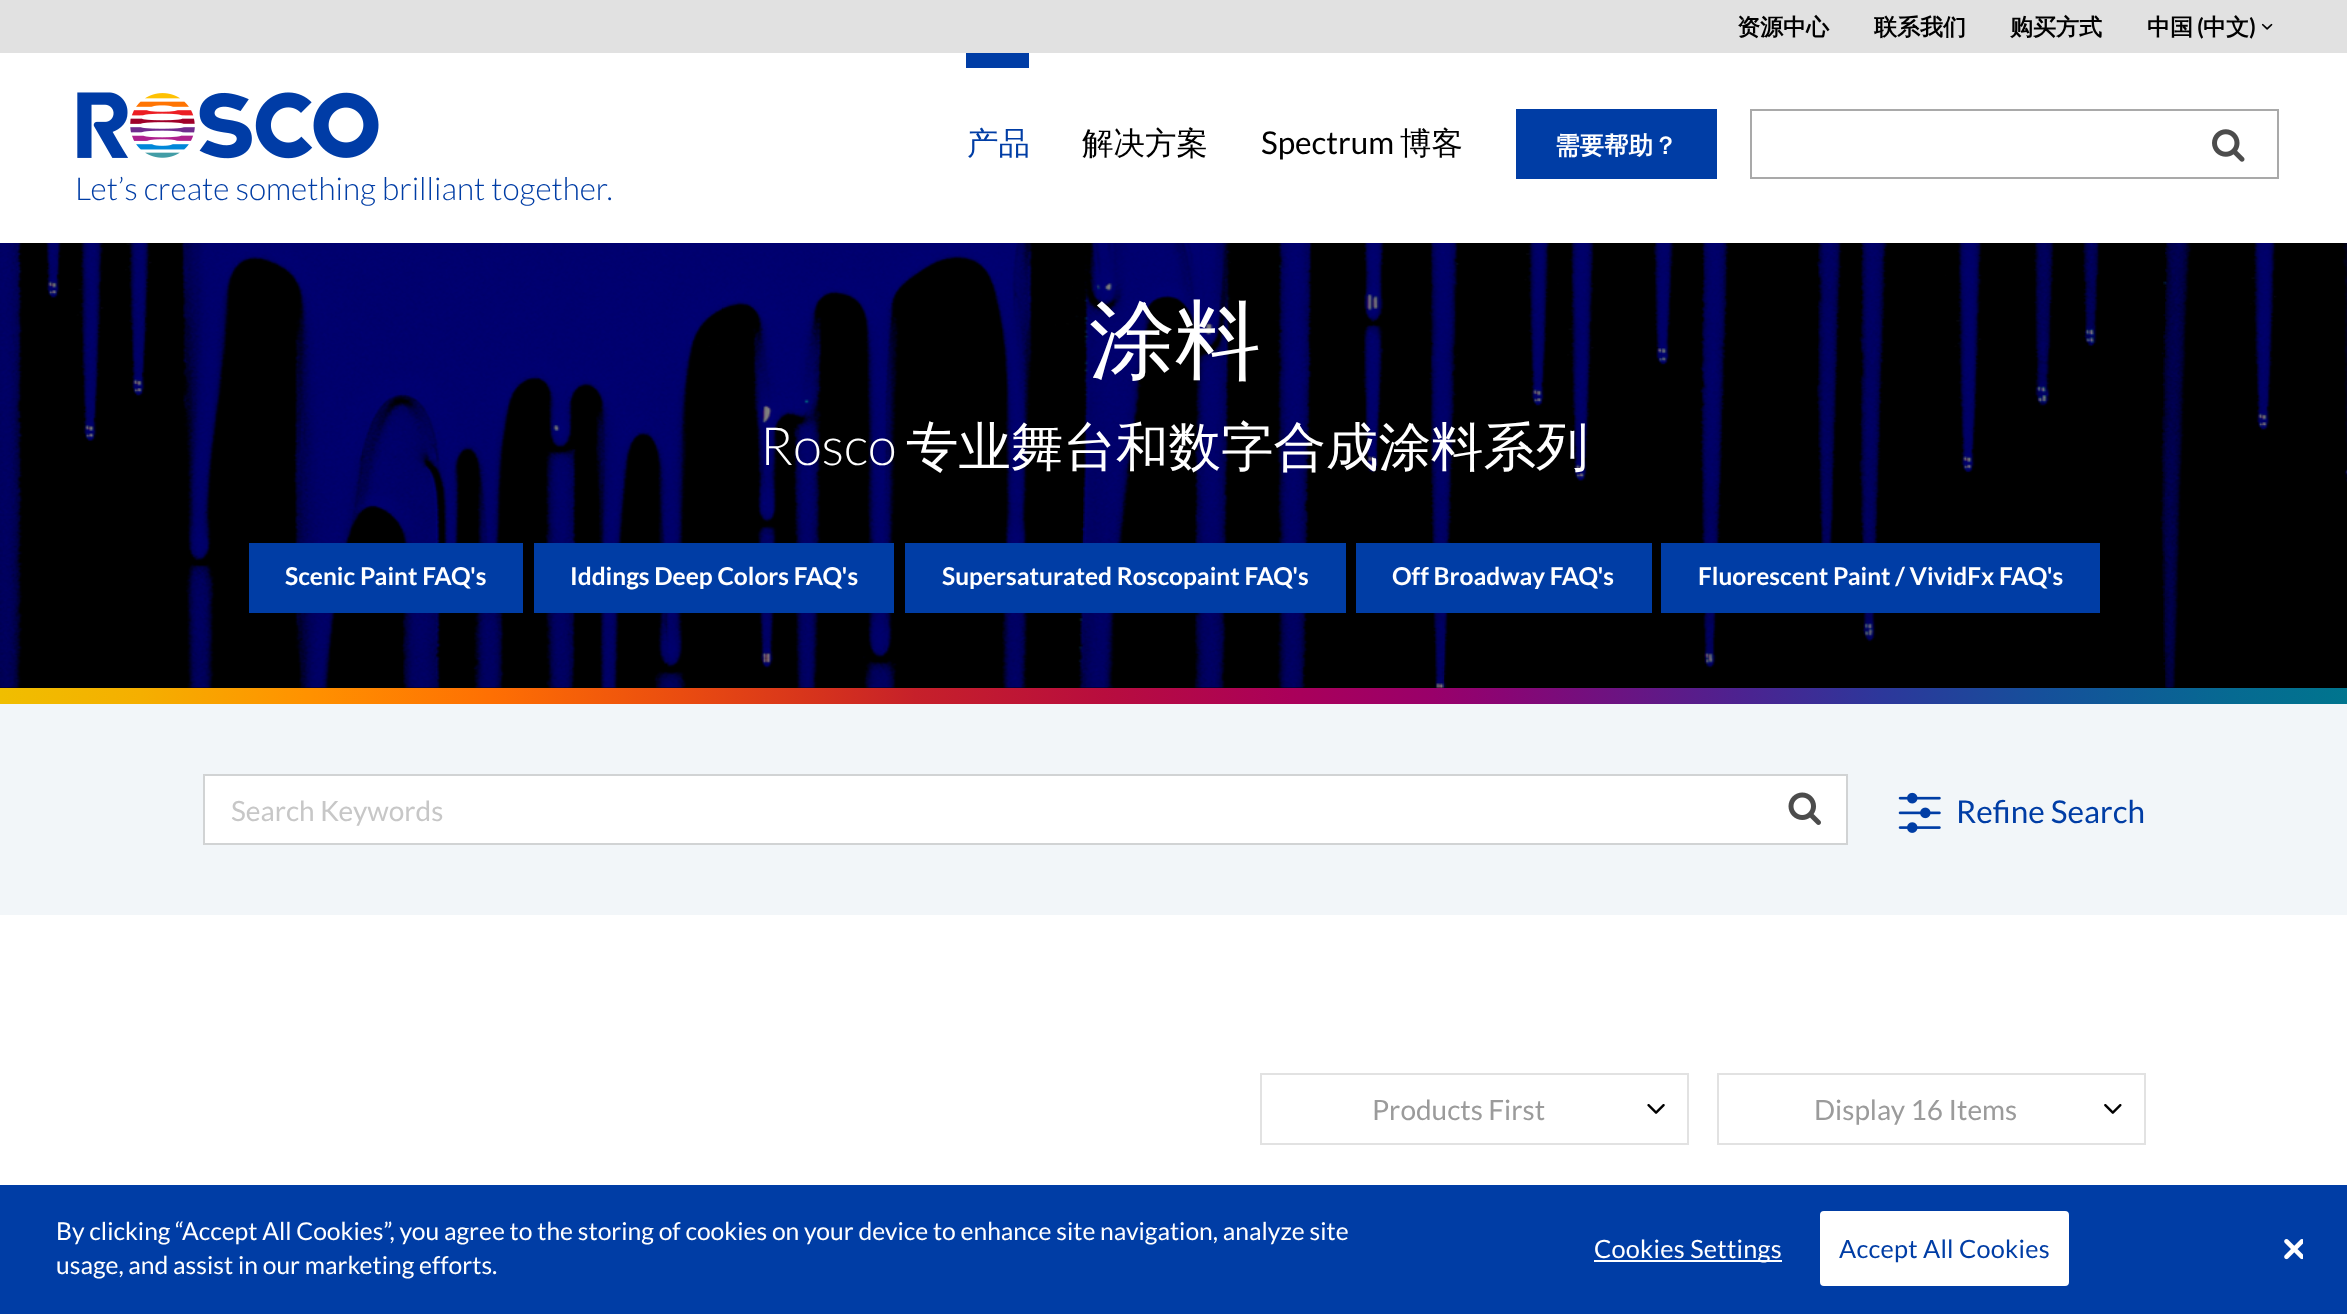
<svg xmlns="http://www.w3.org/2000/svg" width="2347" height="1314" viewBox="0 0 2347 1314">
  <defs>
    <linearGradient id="g1" gradientUnits="userSpaceOnUse" x1="0" y1="696" x2="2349" y2="696"><stop offset="0" stop-color="#f0be00"/><stop offset="0.06" stop-color="#f5af00"/><stop offset="0.13" stop-color="#ff9200"/><stop offset="0.21" stop-color="#fe6f03"/><stop offset="0.29" stop-color="#ea4c10"/><stop offset="0.35" stop-color="#d5321d"/><stop offset="0.39" stop-color="#c6202a"/><stop offset="0.47" stop-color="#b80d3e"/><stop offset="0.55" stop-color="#aa005a"/><stop offset="0.61" stop-color="#99006a"/><stop offset="0.64" stop-color="#890574"/><stop offset="0.74" stop-color="#4d2290"/><stop offset="0.8" stop-color="#2d379b"/><stop offset="0.87" stop-color="#15509b"/><stop offset="0.95" stop-color="#066a92"/><stop offset="1" stop-color="#00758e"/></linearGradient>
  </defs>
  <rect width="100%" height="100%" fill="#fff"/>
  <path d="M0 0h2347v53H0z" fill="#e1e1e1"/>
  <image x="2261" y="23" width="12" height="7" href="img/1.png"/>
  <path d="M966 53h63v15H966z" fill="#003da5"/>
  <path d="M1516 109h201v70H1516z" fill="#003da5"/>
  <path d="M1751 110h527v68H1751z" fill="none" stroke="#a9a9a9" stroke-width="2"/>
  <image x="2212" y="129" width="33" height="33" href="img/2.png"/>
  <image x="77" y="92" width="302" height="67" href="img/3.png"/>
  <path d="M0 687h2347v1H0z" fill="#000"/>
  <image x="0" y="243" width="2347" height="445" href="img/4.png"/>
  <path d="M249 543h274v70H249z" fill="#003da5"/>
  <path d="M534 543h360v70H534z" fill="#003da5"/>
  <path d="M905 543h441v70H905z" fill="#003da5"/>
  <path d="M1356 543h296v70H1356z" fill="#003da5"/>
  <path d="M1661 543h439v70H1661z" fill="#003da5"/>
  <path d="M0 688h2347v16H0z" fill="url(#g1)"/>
  <path d="M0 704h2347v211H0z" fill="#f2f6f9"/>
  <path d="M204 775h1643v69H204z" fill="#fff" stroke="#d1d3d4" stroke-width="2"/>
  <image x="1788" y="792" width="33" height="33" href="img/5.png"/>
  <image x="1898" y="792" width="43" height="41" href="img/6.png"/>
  <path d="M1261 1074h427v70H1261z" fill="none" stroke="#e2e2e2" stroke-width="2"/>
  <image x="1647" y="1104" width="18" height="10" href="img/7.png"/>
  <path d="M1718 1074h427v70H1718z" fill="none" stroke="#e2e2e2" stroke-width="2"/>
  <image x="2104" y="1104" width="18" height="10" href="img/8.png"/>
  <path d="M0 1185h2347v129H0z" fill="#003da5"/>
  <path d="M1594 1260h188v2H1594z" fill="#fff"/>
  <rect x="1821" y="1212" width="247" height="73" rx="3" fill="#fff" stroke="#fff" stroke-width="2"/>
  <image x="2284" y="1239" width="19" height="21" href="img/9.png"/>
  <g font-family="WenQuanYi Zen Hei" font-size="23" font-weight="bold" fill="#000">
    <text x="1737" y="35">资源中心</text>
    <text x="1874" y="35">联系我们</text>
    <text x="2010" y="35">购买方式</text>
    <text x="2147" y="35">中国</text>
  </g>
  <text x="2197" y="35" font-family="Lato" font-size="23" font-weight="bold" fill="#000">(</text>
  <text x="2203" y="35" font-family="WenQuanYi Zen Hei" font-size="23" font-weight="bold" fill="#000">中文</text>
  <text x="2249" y="35" font-family="Lato" font-size="23" font-weight="bold" fill="#000">)</text>
  <text x="967" y="154" font-family="WenQuanYi Zen Hei" font-size="31.5" font-weight="500" fill="#003da5">产品</text>
  <text x="1082" y="154" font-family="WenQuanYi Zen Hei" font-size="31.5" font-weight="500" fill="#000">解决方案</text>
  <text x="1261" y="154" font-family="Lato" font-size="31.5" fill="#000">Spectrum</text>
  <text x="1400" y="154" font-family="WenQuanYi Zen Hei" font-size="31.5" font-weight="500" fill="#000">博客</text>
  <text x="1555" y="154" font-family="WenQuanYi Zen Hei" font-size="24.5" font-weight="bold" fill="#fff">需要帮助？</text>
  <text x="75" y="200" font-family="Lato" font-size="31.5" font-weight="300" fill="#003da5">Let’s create something brilliant together.</text>
  <text x="1089" y="370" font-family="WenQuanYi Zen Hei" font-size="86" font-weight="500" fill="#fff">涂料</text>
  <text x="760" y="465" font-family="Lato" font-size="52.5" font-weight="300" fill="#fff">Rosco</text>
  <text x="906" y="465" font-family="WenQuanYi Zen Hei" font-size="52.5" font-weight="500" fill="#fff">专业舞台和数字合成涂料系列</text>
  <g font-family="Lato" font-size="24.5" font-weight="bold" fill="#fff">
    <text x="285" y="585">Scenic Paint FAQ's</text>
    <text x="570" y="585">Iddings Deep Colors FAQ's</text>
    <text x="942" y="585">Supersaturated Roscopaint FAQ's</text>
    <text x="1392" y="585">Off Broadway FAQ's</text>
    <text x="1698" y="585">Fluorescent Paint / VividFx FAQ's</text>
  </g>
  <text x="231" y="821" font-family="Lato" font-size="28" fill="#c7c7c7">Search Keywords</text>
  <text x="1956" y="823" font-family="Lato" font-size="31.5" fill="#003da5">Refine Search</text>
  <g font-family="Lato" font-size="28" fill="#9b9b9b">
    <text x="1372" y="1120">Products First</text>
    <text x="1814" y="1120">Display 16 Items</text>
  </g>
  <g font-family="Lato" font-size="24.65" fill="#fff">
    <text x="56" y="1240">By clicking “Accept All Cookies”, you agree to the storing of cookies on your device to enhance site navigation, analyze site</text>
    <text x="56" y="1274">usage, and assist in our marketing efforts.</text>
  </g>
  <text x="1594" y="1258" font-family="Lato" font-size="25.25" letter-spacing="0.25" fill="#fff">Cookies Settings</text>
  <text x="1839" y="1258" font-family="Lato" font-size="25.25" letter-spacing="0.25" fill="#003da5">Accept All Cookies</text>
</svg>
